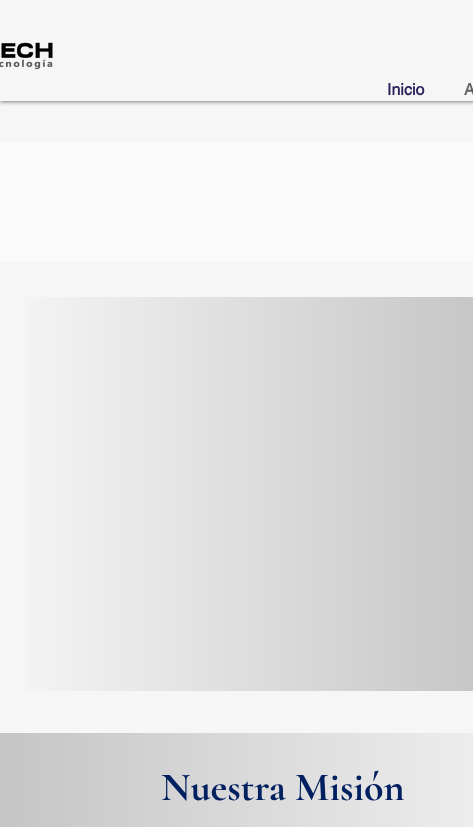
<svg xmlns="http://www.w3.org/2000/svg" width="473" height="827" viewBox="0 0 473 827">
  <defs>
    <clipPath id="clip1"><path d="M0 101h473v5H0z"/></clipPath>
    <linearGradient id="g1" gradientUnits="userSpaceOnUse" x1="0" y1="494" x2="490" y2="494"><stop offset="0" stop-color="#f6f6f6"/><stop offset="1" stop-color="#c5c5c5"/></linearGradient>
    <linearGradient id="g2" gradientUnits="userSpaceOnUse" x1="0" y1="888" x2="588" y2="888"><stop offset="0" stop-color="#c5c5c5"/><stop offset="1" stop-color="#f6f6f6"/></linearGradient>
  </defs>
  <rect width="100%" height="100%" fill="#f6f6f6"/>
  <g clip-path="url(#clip1)">
    <path d="M0 0h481v101H0z" fill="#000000b3" filter="blur(2.5px)"/>
  </g>
  <image x="0" y="42" width="53" height="28" href="img/1.png"/>
  <path d="M0 142h473v120H0z" fill="#fafafa"/>
  <path d="M25 297h448v394H25z" fill="url(#g1)"/>
  <path d="M0 733h473v94H0z" fill="url(#g2)"/>
  <text x="387" y="95" font-family="helvetica" font-size="16" font-weight="bold" fill="#29235c">Inicio</text>
  <text x="464" y="95" font-family="helvetica" font-size="16" font-weight="bold" fill="#626262">A</text>
  <text x="161" y="800" font-family="Cormorant Garamond" font-size="40" font-weight="bold" fill="#002060">Nuestra Misión</text>
</svg>
